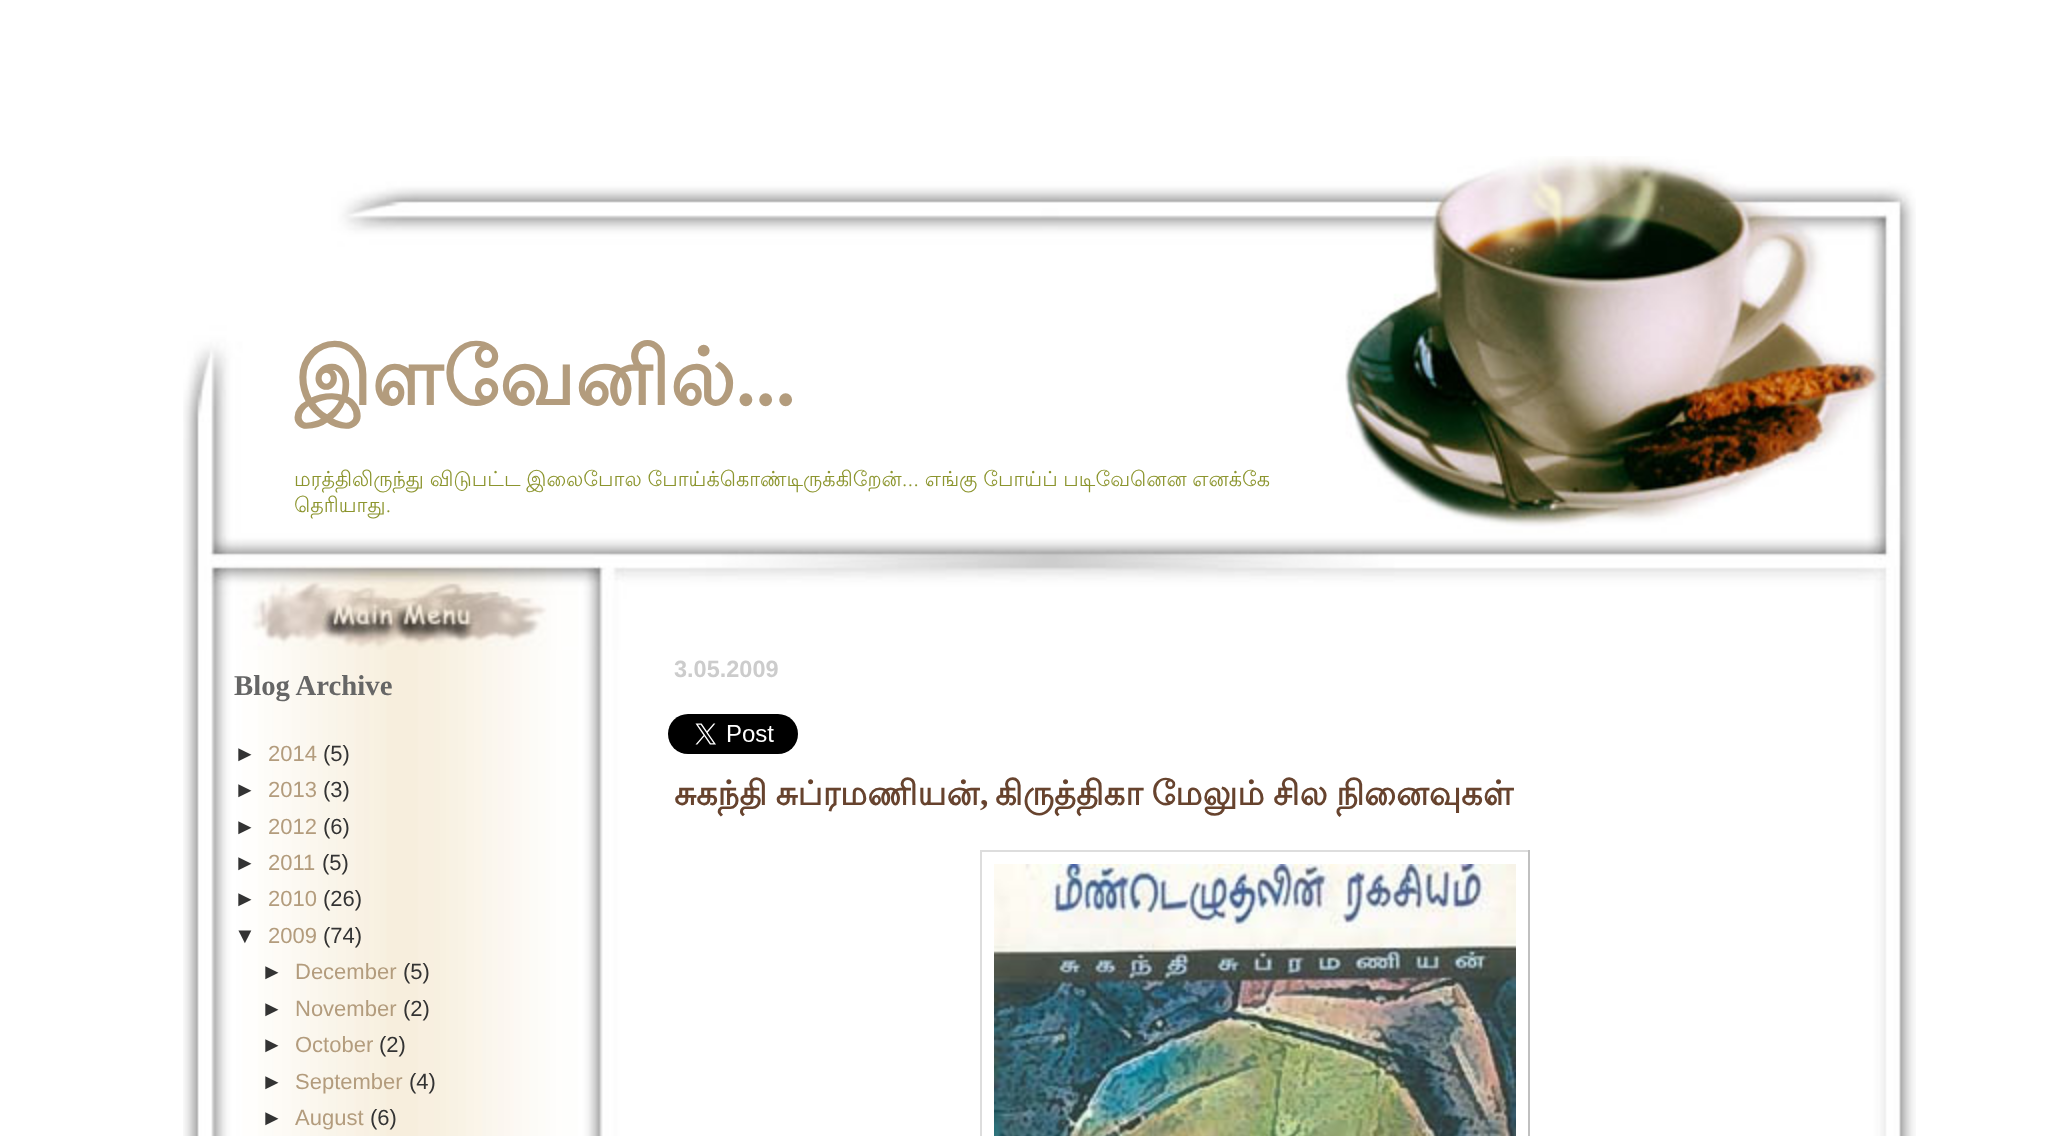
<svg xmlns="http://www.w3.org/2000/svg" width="2067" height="1136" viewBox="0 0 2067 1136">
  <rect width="100%" height="100%" fill="#fff"/>
  <image x="183" y="156" width="1733" height="494" href="img/1.png"/>
  <image x="183" y="650" width="1733" height="486" href="img/2.png"/>
  <image x="668" y="714" width="130" height="40" href="img/3.png"/>
  <path d="M980 850h550v2H980z" fill="#ddd"/>
  <path d="M1528 850h2v286H1528z" fill="#c0c0c0"/>
  <path d="M980 850h2v286H980z" fill="#ddd"/>
  <image x="994" y="864" width="522" height="272" href="img/4.png"/>
  <text x="294" y="405" font-family="Lohit Tamil" font-size="79.25" font-weight="bold" fill="#b39c7d">இளவேனில்</text>
  <text x="736" y="405" font-family="Liberation Serif" font-size="79.25" font-weight="bold" fill="#b39c7d">...</text>
  <g font-family="Lohit Tamil" font-size="20.8" fill="#8c952e">
    <text x="294" y="486" word-spacing="-0.5">மரத்திலிருந்து விடுபட்ட இலைபோல போய்க்கொண்டிருக்கிறேன்... எங்கு போய்ப் படிவேனென எனக்கே</text>
    <text x="294" y="512">தெரியாது.</text>
  </g>
  <text x="234" y="695" font-family="Liberation Serif" font-size="28.75" font-weight="bold" fill="#666">Blog Archive</text>
  <text x="234" y="761" font-family="Liberation Sans" font-size="22" fill="#333">►</text>
  <text x="268" y="761" font-family="Liberation Sans" font-size="22" fill="#b39c7d">2014</text>
  <g font-family="Liberation Sans" font-size="22" fill="#333">
    <text x="323" y="761">(5)</text>
    <text x="234" y="797">►</text>
  </g>
  <text x="268" y="797" font-family="Liberation Sans" font-size="22" fill="#b39c7d">2013</text>
  <g font-family="Liberation Sans" font-size="22" fill="#333">
    <text x="323" y="797">(3)</text>
    <text x="234" y="834">►</text>
  </g>
  <text x="268" y="834" font-family="Liberation Sans" font-size="22" fill="#b39c7d">2012</text>
  <g font-family="Liberation Sans" font-size="22" fill="#333">
    <text x="323" y="834">(6)</text>
    <text x="234" y="870">►</text>
  </g>
  <text x="268" y="870" font-family="Liberation Sans" font-size="22" fill="#b39c7d">2011</text>
  <g font-family="Liberation Sans" font-size="22" fill="#333">
    <text x="322" y="870">(5)</text>
    <text x="234" y="906">►</text>
  </g>
  <text x="268" y="906" font-family="Liberation Sans" font-size="22" fill="#b39c7d">2010</text>
  <g font-family="Liberation Sans" font-size="22" fill="#333">
    <text x="323" y="906">(26)</text>
    <text x="234" y="943">▼</text>
  </g>
  <text x="268" y="943" font-family="Liberation Sans" font-size="22" fill="#b39c7d">2009</text>
  <g font-family="Liberation Sans" font-size="22" fill="#333">
    <text x="323" y="943">(74)</text>
    <text x="261" y="979">►</text>
  </g>
  <text x="295" y="979" font-family="Liberation Sans" font-size="22" fill="#b39c7d">December</text>
  <g font-family="Liberation Sans" font-size="22" fill="#333">
    <text x="403" y="979">(5)</text>
    <text x="261" y="1016">►</text>
  </g>
  <text x="295" y="1016" font-family="Liberation Sans" font-size="22" fill="#b39c7d">November</text>
  <g font-family="Liberation Sans" font-size="22" fill="#333">
    <text x="403" y="1016">(2)</text>
    <text x="261" y="1052">►</text>
  </g>
  <text x="295" y="1052" font-family="Liberation Sans" font-size="22" fill="#b39c7d">October</text>
  <g font-family="Liberation Sans" font-size="22" fill="#333">
    <text x="379" y="1052">(2)</text>
    <text x="261" y="1089">►</text>
  </g>
  <text x="295" y="1089" font-family="Liberation Sans" font-size="22" fill="#b39c7d">September</text>
  <g font-family="Liberation Sans" font-size="22" fill="#333">
    <text x="409" y="1089">(4)</text>
    <text x="261" y="1125">►</text>
  </g>
  <text x="295" y="1125" font-family="Liberation Sans" font-size="22" fill="#b39c7d">August</text>
  <text x="370" y="1125" font-family="Liberation Sans" font-size="22" fill="#333">(6)</text>
  <text x="674" y="677" font-family="Liberation Sans" font-size="23.5" font-weight="bold" fill="#ccc">3.05.2009</text>
  <text x="674" y="805" word-spacing="-1.5" font-family="Lohit Tamil" font-size="33.75" font-weight="bold" fill="#67432e">சுகந்தி சுப்ரமணியன்</text>
  <text x="980" y="805" font-family="Liberation Serif" font-size="33.75" font-weight="bold" fill="#67432e">,</text>
  <text x="995" y="805" word-spacing="-1.5" font-family="Lohit Tamil" font-size="33.75" font-weight="bold" fill="#67432e">கிருத்திகா மேலும் சில நினைவுகள்</text>
</svg>
